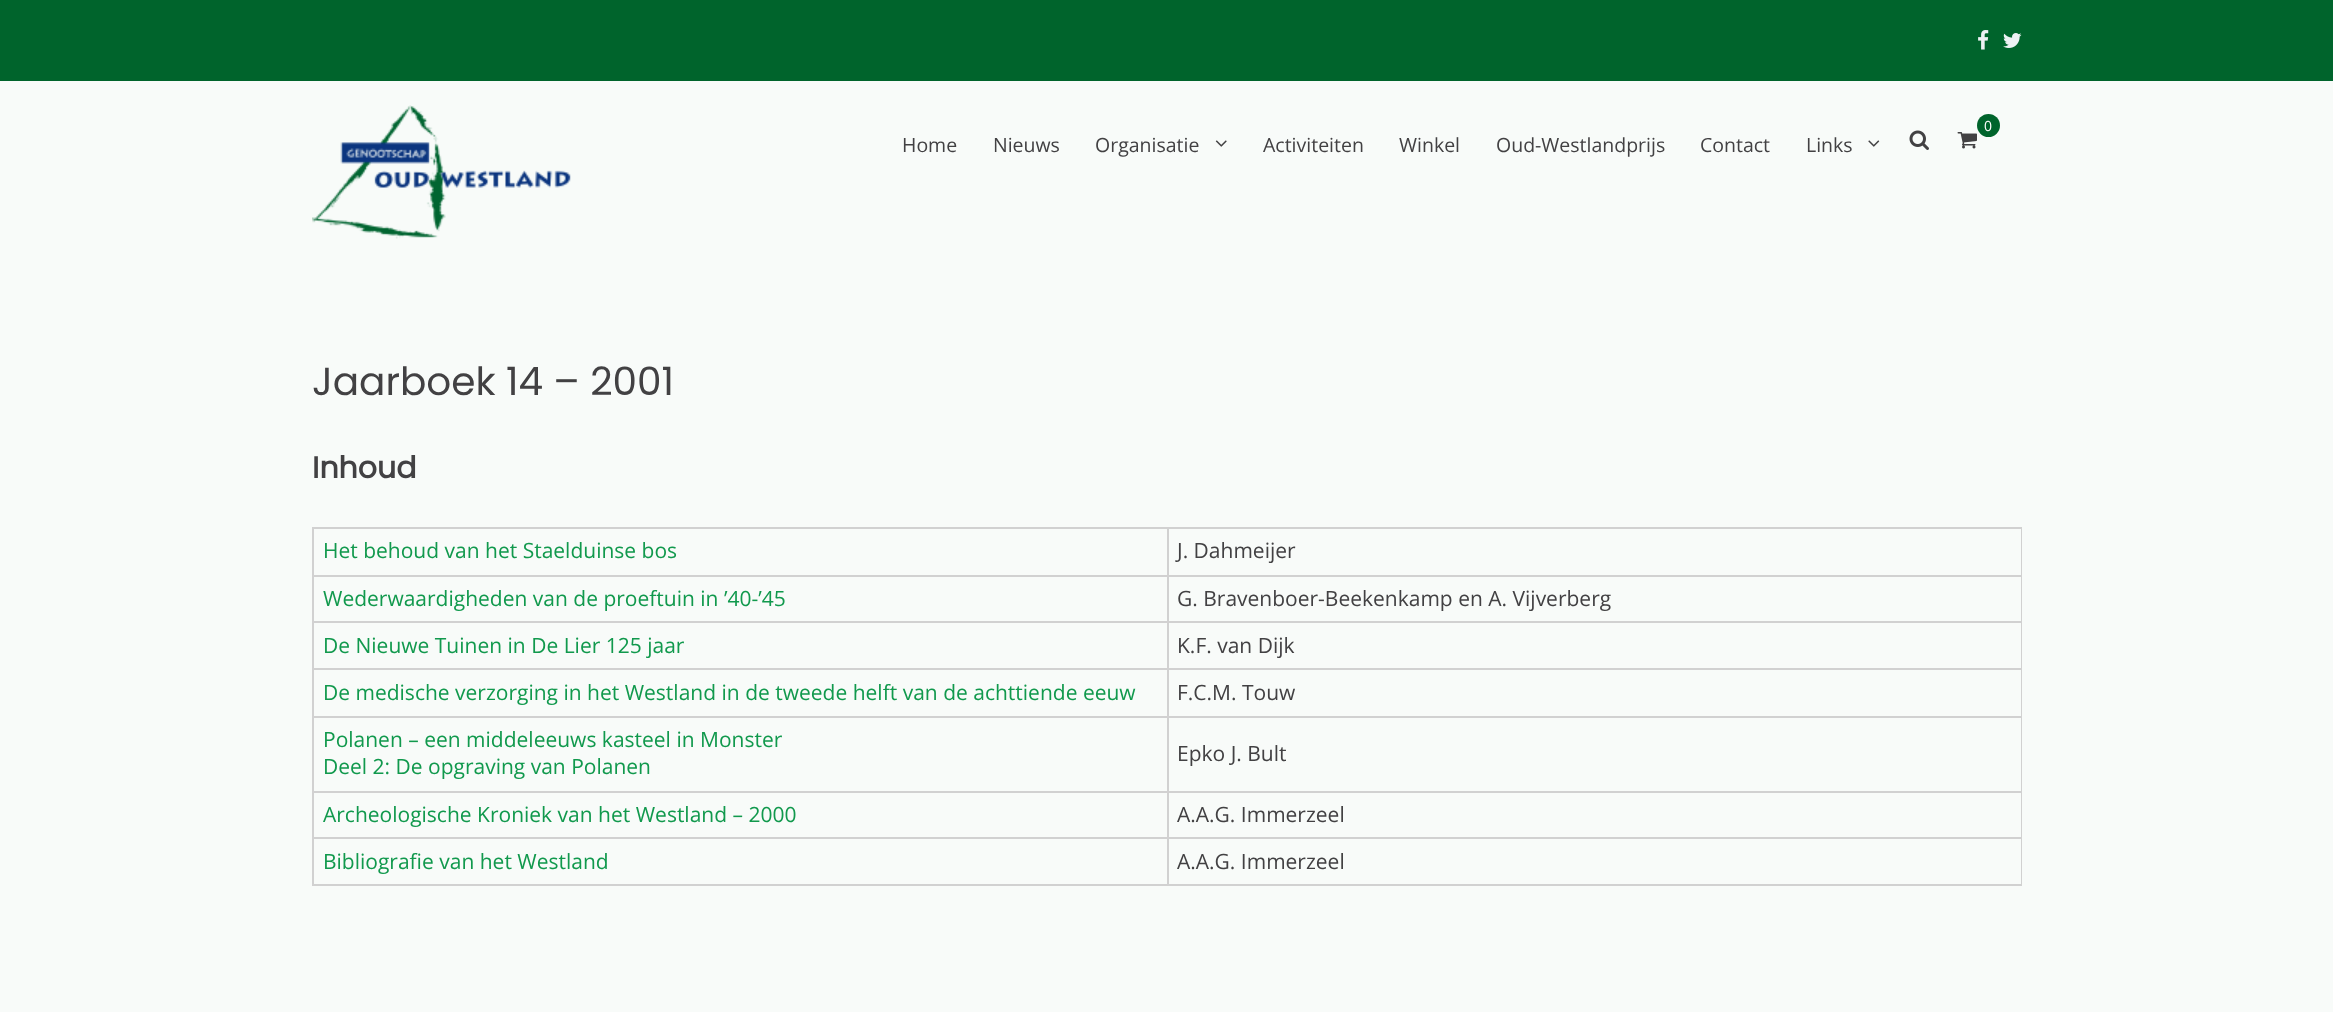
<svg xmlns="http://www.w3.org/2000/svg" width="2333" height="1012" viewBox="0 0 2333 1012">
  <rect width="100%" height="100%" fill="#f8fbf9"/>
  <path d="M0 0h2333v81H0z" fill="#00642c"/>
  <image x="1978" y="30" width="11" height="20" href="img/1.png"/>
  <image x="2003" y="33" width="19" height="15" href="img/2.png"/>
  <image x="312" y="105" width="259" height="134" href="img/3.png"/>
  <circle cx="1988.5" cy="125.5" r="11.5" fill="#00642c"/>
  <image x="1957" y="132" width="20" height="17" href="img/4.png"/>
  <image x="1909" y="130" width="20" height="20" href="img/5.png"/>
  <image x="1215" y="140" width="12" height="7" href="img/6.png"/>
  <image x="1868" y="140" width="12" height="7" href="img/7.png"/>
  <path d="M312 527h1710v2H312z" fill="#d1d1d1"/>
  <path d="M312 527h2v358H312z" fill="#d1d1d1"/>
  <path d="M2021 527h1v358H2021z" fill="#d1d1d1"/>
  <path d="M1167 884h855v2H1167z" fill="#d1d1d1"/>
  <path d="M1167 837h2v48H1167z" fill="#d1d1d1"/>
  <path d="M1167 837h855v2H1167z" fill="#d1d1d1"/>
  <path d="M1167 791h2v48H1167z" fill="#d1d1d1"/>
  <path d="M1167 791h855v2H1167z" fill="#d1d1d1"/>
  <path d="M1167 716h2v76H1167z" fill="#d1d1d1"/>
  <path d="M1167 716h855v2H1167z" fill="#d1d1d1"/>
  <path d="M1167 668h2v49H1167z" fill="#d1d1d1"/>
  <path d="M1167 668h855v2H1167z" fill="#d1d1d1"/>
  <path d="M1167 621h2v48H1167z" fill="#d1d1d1"/>
  <path d="M1167 621h855v2H1167z" fill="#d1d1d1"/>
  <path d="M1167 575h2v48H1167z" fill="#d1d1d1"/>
  <path d="M1167 575h855v2H1167z" fill="#d1d1d1"/>
  <path d="M1167 527h2v49H1167z" fill="#d1d1d1"/>
  <path d="M312 575h857v2H312z" fill="#d1d1d1"/>
  <path d="M312 621h857v2H312z" fill="#d1d1d1"/>
  <path d="M312 668h857v2H312z" fill="#d1d1d1"/>
  <path d="M312 716h857v2H312z" fill="#d1d1d1"/>
  <path d="M312 791h857v2H312z" fill="#d1d1d1"/>
  <path d="M312 837h857v2H312z" fill="#d1d1d1"/>
  <path d="M312 884h857v2H312z" fill="#d1d1d1"/>
  <text x="1984" y="131" font-family="Open Sans" font-size="14" fill="#fff">0</text>
  <g font-family="Open Sans" font-size="19.5" fill="#424143">
    <text x="902" y="152">Home</text>
    <text x="993" y="152">Nieuws</text>
    <text x="1095" y="152">Organisatie</text>
    <text x="1263" y="152">Activiteiten</text>
    <text x="1399" y="152">Winkel</text>
    <text x="1496" y="152">Oud-Westlandprijs</text>
    <text x="1700" y="152">Contact</text>
    <text x="1806" y="152">Links</text>
  </g>
  <text x="312" y="395" font-family="Poppins" font-size="39" fill="#424143">Jaarboek 14 – 2001</text>
  <text x="312" y="478" font-family="Poppins" font-size="30" font-weight="bold" fill="#424143">Inhoud</text>
  <text x="323" y="558" font-family="Open Sans" font-size="21" fill="#11994d">Het behoud van het Staelduinse bos</text>
  <text x="1177" y="558" font-family="Open Sans" font-size="21" fill="#424143">J. Dahmeijer</text>
  <text x="323" y="606" font-family="Open Sans" font-size="21" fill="#11994d">Wederwaardigheden van de proeftuin in ’40-’45</text>
  <text x="1177" y="606" font-family="Open Sans" font-size="21" fill="#424143">G. Bravenboer-Beekenkamp en A. Vijverberg</text>
  <text x="323" y="653" font-family="Open Sans" font-size="21" fill="#11994d">De Nieuwe Tuinen in De Lier 125 jaar</text>
  <text x="1177" y="653" font-family="Open Sans" font-size="21" fill="#424143">K.F. van Dijk</text>
  <text x="323" y="700" font-family="Open Sans" font-size="21" fill="#11994d">De medische verzorging in het Westland in de tweede helft van de achttiende eeuw</text>
  <text x="1177" y="700" font-family="Open Sans" font-size="21" fill="#424143">F.C.M. Touw</text>
  <g font-family="Open Sans" font-size="21" fill="#11994d">
    <text x="323" y="747">Polanen – een middeleeuws kasteel in Monster</text>
    <text x="323" y="774">Deel 2: De opgraving van Polanen</text>
  </g>
  <text x="1177" y="761" font-family="Open Sans" font-size="21" fill="#424143">Epko J. Bult</text>
  <text x="323" y="822" font-family="Open Sans" font-size="21" fill="#11994d">Archeologische Kroniek van het Westland – 2000</text>
  <text x="1177" y="822" font-family="Open Sans" font-size="21" fill="#424143">A.A.G. Immerzeel</text>
  <text x="323" y="869" font-family="Open Sans" font-size="21" fill="#11994d">Bibliografie van het Westland</text>
  <text x="1177" y="869" font-family="Open Sans" font-size="21" fill="#424143">A.A.G. Immerzeel</text>
</svg>
